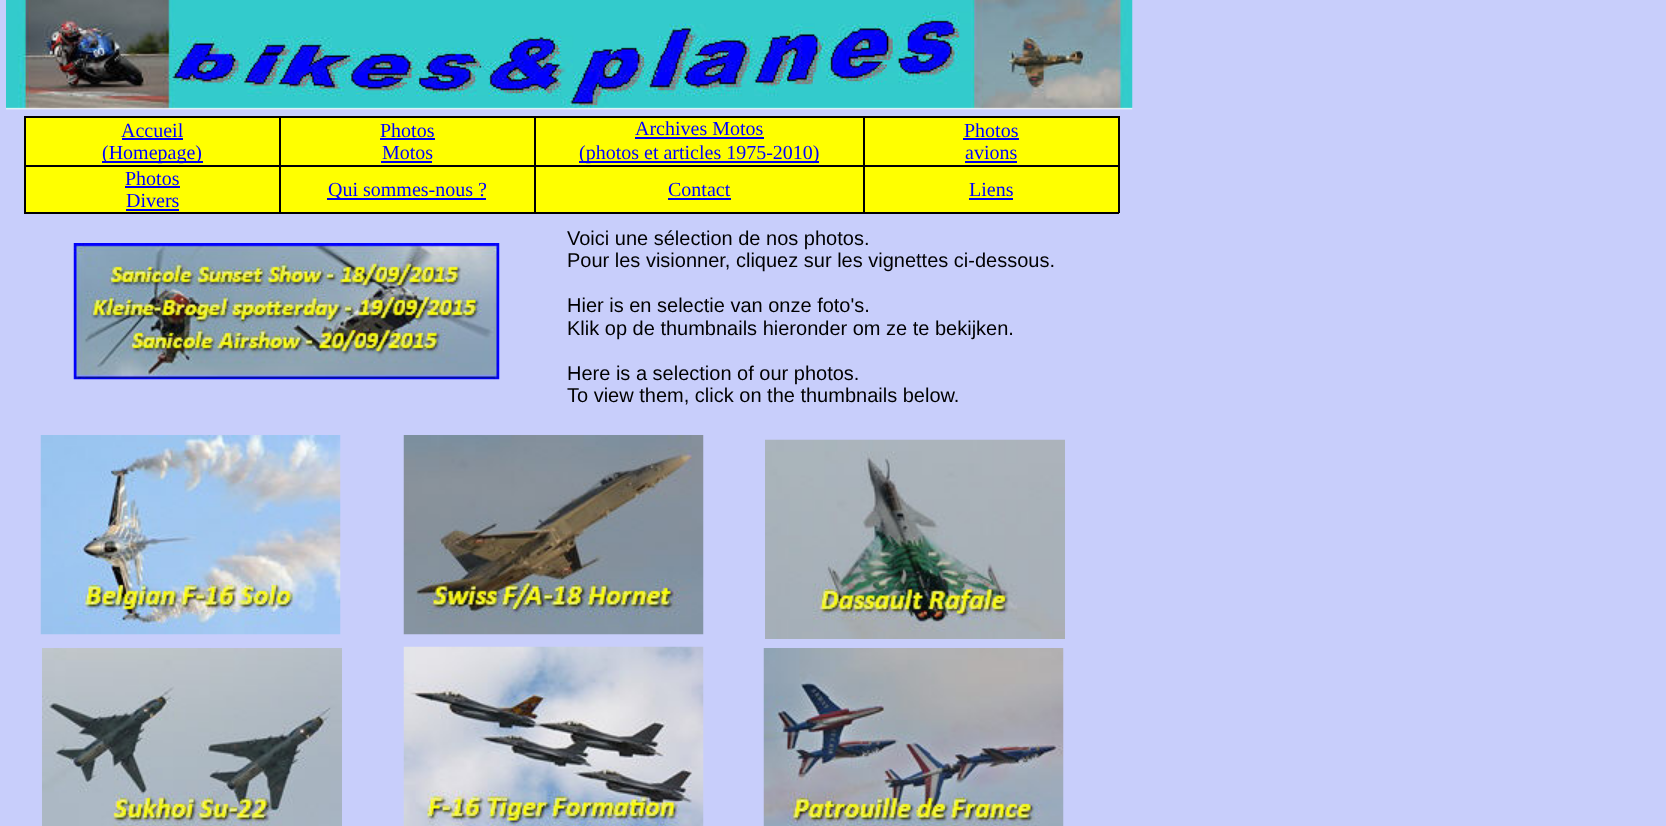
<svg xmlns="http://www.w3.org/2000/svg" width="1666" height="826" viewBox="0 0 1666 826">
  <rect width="100%" height="100%" fill="#c8cefb"/>
  <image x="6" y="0" width="1127" height="110" href="img/1.png"/>
  <path d="M26 118h253v47H26z" fill="#ff0"/>
  <path d="M863 116h256v2H863z" fill="#010101"/>
  <path d="M863 165h256v2H863z" fill="#010101"/>
  <path d="M1118 165h2v48H1118z" fill="#010101"/>
  <path d="M863 212h256v2H863z" fill="#010101"/>
  <path d="M863 165h2v48H863z" fill="#010101"/>
  <path d="M534 165h330v2H534z" fill="#010101"/>
  <path d="M863 116h2v51H863z" fill="#010101"/>
  <path d="M534 116h330v2H534z" fill="#010101"/>
  <path d="M534 212h330v2H534z" fill="#010101"/>
  <path d="M534 165h2v48H534z" fill="#010101"/>
  <path d="M279 165h257v2H279z" fill="#010101"/>
  <path d="M534 116h2v51H534z" fill="#010101"/>
  <path d="M279 116h257v2H279z" fill="#010101"/>
  <path d="M279 212h257v2H279z" fill="#010101"/>
  <path d="M279 165h2v48H279z" fill="#010101"/>
  <path d="M24 165h257v2H24z" fill="#010101"/>
  <path d="M279 116h2v51H279z" fill="#010101"/>
  <path d="M24 116h257v2H24z" fill="#010101"/>
  <path d="M24 212h257v2H24z" fill="#010101"/>
  <path d="M24 165h2v48H24z" fill="#010101"/>
  <path d="M24 116h2v51H24z" fill="#010101"/>
  <path d="M122 138h61v2H122z" fill="#00e"/>
  <path d="M102 161h101v2H102z" fill="#00e"/>
  <path d="M281 118h253v47H281z" fill="#ff0"/>
  <path d="M380 138h55v2H380z" fill="#00e"/>
  <path d="M381 161h51v2H381z" fill="#00e"/>
  <path d="M536 118h327v47H536z" fill="#ff0"/>
  <path d="M635 137h129v2H635z" fill="#00e"/>
  <path d="M579 161h240v2H579z" fill="#00e"/>
  <path d="M865 118h253v47H865z" fill="#ff0"/>
  <path d="M1118 116h2v51H1118z" fill="#010101"/>
  <path d="M963 138h56v2H963z" fill="#00e"/>
  <path d="M965 161h52v2H965z" fill="#00e"/>
  <path d="M26 167h253v45H26z" fill="#ff0"/>
  <path d="M125 186h55v2H125z" fill="#00e"/>
  <path d="M126 209h53v2H126z" fill="#00e"/>
  <path d="M281 167h253v45H281z" fill="#ff0"/>
  <path d="M327 198h159v2H327z" fill="#00e"/>
  <path d="M536 167h327v45H536z" fill="#ff0"/>
  <path d="M668 198h63v2H668z" fill="#00e"/>
  <path d="M865 167h253v45H865z" fill="#ff0"/>
  <path d="M969 198h44v2H969z" fill="#00e"/>
  <image x="73" y="243" width="427" height="137" href="img/2.png"/>
  <image x="40" y="435" width="301" height="200" href="img/3.png"/>
  <image x="403" y="435" width="301" height="200" href="img/4.png"/>
  <image x="765" y="439" width="300" height="200" href="img/5.png"/>
  <image x="42" y="648" width="300" height="178" href="img/6.png"/>
  <image x="403" y="646" width="301" height="180" href="img/7.png"/>
  <image x="763" y="648" width="301" height="178" href="img/8.png"/>
  <g font-family="Liberation Serif" font-size="20" fill="#00f">
    <text x="121" y="137">Accueil</text>
    <text x="102" y="159">(Homepage)</text>
    <text x="380" y="137">Photos</text>
    <text x="382" y="159">Motos</text>
    <text x="635" y="135">Archives Motos</text>
    <text x="579" y="159">(photos et articles 1975-2010)</text>
    <text x="964" y="137">Photos</text>
    <text x="965" y="159">avions</text>
    <text x="125" y="185">Photos</text>
    <text x="126" y="207">Divers</text>
    <text x="328" y="196">Qui sommes-nous ?</text>
    <text x="668" y="196">Contact</text>
    <text x="969" y="196">Liens</text>
  </g>
  <g font-family="Liberation Sans" font-size="20" fill="#000">
    <text x="567" y="245">Voici une sélection de nos photos.</text>
    <text x="567" y="267">Pour les visionner, cliquez sur les vignettes ci-dessous.</text>
    <text x="567" y="312">Hier is en selectie van onze foto's.</text>
    <text x="567" y="335">Klik op de thumbnails hieronder om ze te bekijken.</text>
    <text x="567" y="380">Here is a selection of our photos.</text>
    <text x="567" y="402">To view them, click on the thumbnails below.</text>
  </g>
</svg>
